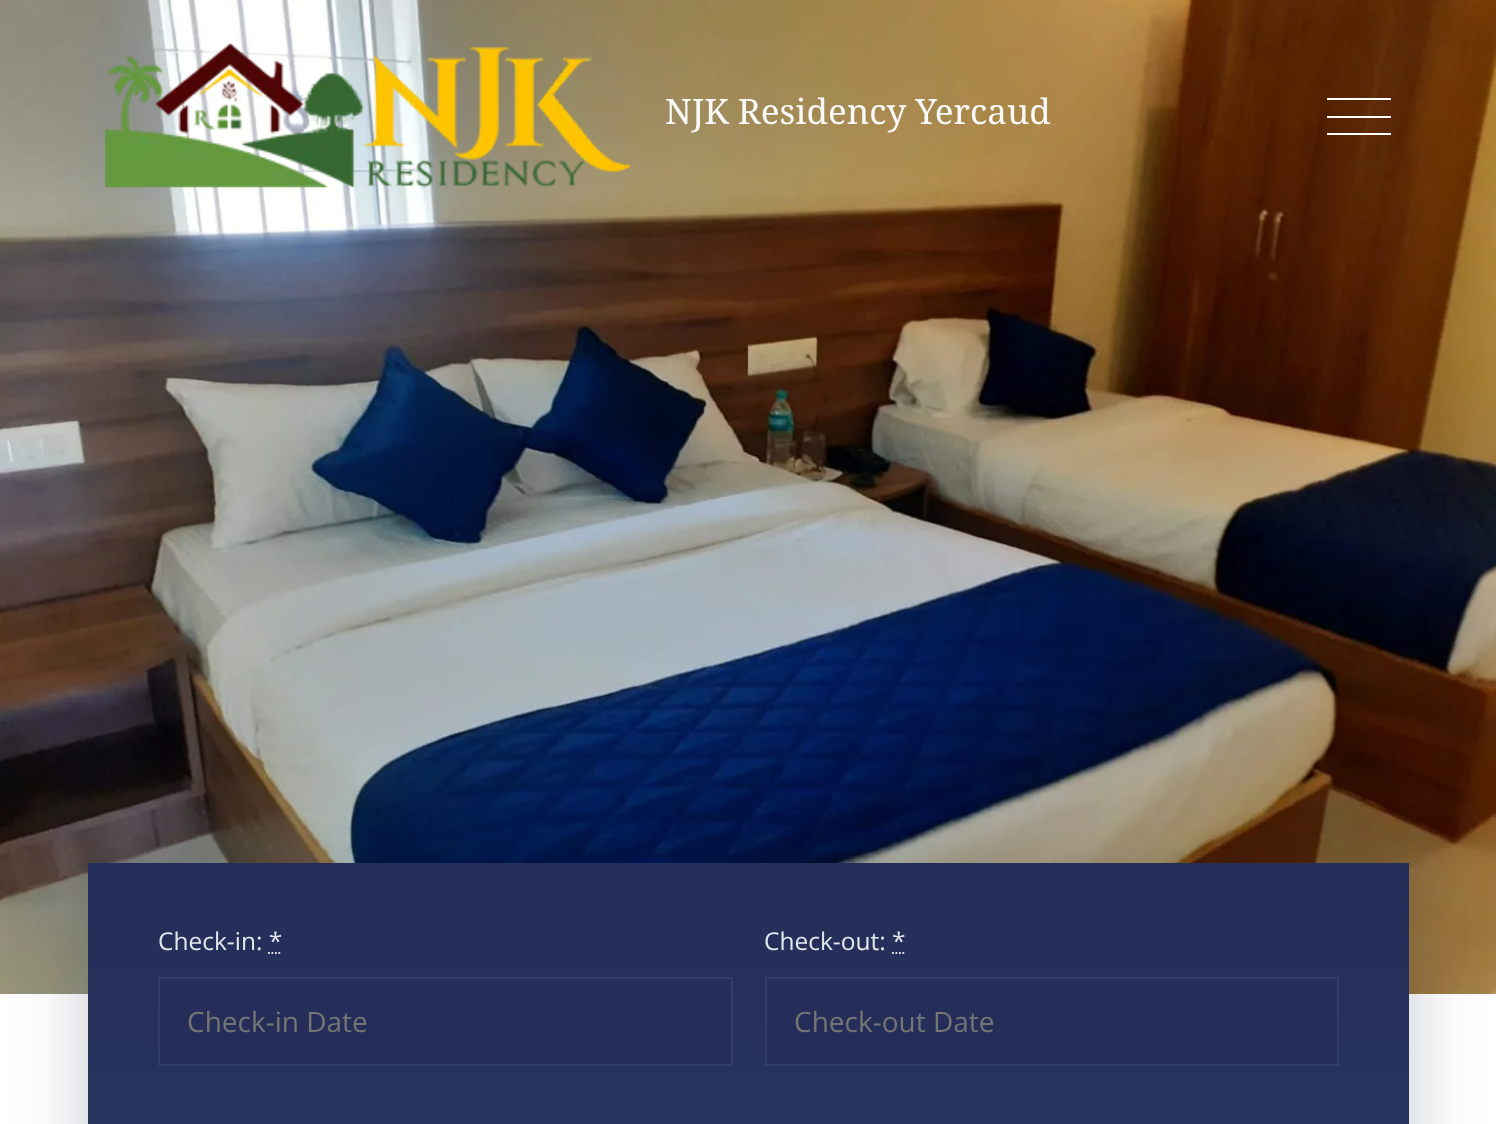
<svg xmlns="http://www.w3.org/2000/svg" width="1496" height="1124" viewBox="0 0 1496 1124">
  <defs>
    <linearGradient id="g1" gradientUnits="userSpaceOnUse" x1="748" y1="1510" x2="748" y2="863"><stop offset="0" stop-color="#263b63"/><stop offset="1" stop-color="#252e59"/></linearGradient>
  </defs>
  <rect width="100%" height="100%" fill="#fff"/>
  <image x="0" y="0" width="1496" height="994" href="img/2.png"/>
  <image x="105" y="43" width="525" height="145" href="img/1.png"/>
  <path d="M1327 98h64v2H1327z" fill="#fff"/>
  <path d="M1327 116h64v2H1327z" fill="#fff"/>
  <path d="M1327 133h64v2H1327z" fill="#fff"/>
  <path d="M88 886h1321v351H88z" fill="#061c343b" filter="blur(37.5px)"/>
  <path d="M88 863h1321v261H88z" fill="url(#g1)"/>
  <path d="M268 953H282" fill="none" stroke="#e5e8eb" stroke-width="1.8" stroke-dasharray="1.75 1.75"/>
  <path d="M160 987h571v77H160z" fill="#252e59"/>
  <path d="M159 978h573v87H159z" fill="none" stroke="#323e68" stroke-width="2"/>
  <path d="M892 953H905.5" fill="none" stroke="#e5e8eb" stroke-width="1.8" stroke-dasharray="1.75 1.75"/>
  <path d="M767 987h570v77H767z" fill="#252e59"/>
  <path d="M766 978h572v87H766z" fill="none" stroke="#323e68" stroke-width="2"/>
  <text x="665" y="124" font-family="Noto Serif" font-size="35" fill="#fafafa">NJK Residency Yercaud</text>
  <text x="158" y="950" font-family="Open Sans" font-size="24.5" fill="#e5e8eb">Check-in: *</text>
  <text x="187" y="1032" font-family="Open Sans" font-size="28" fill="#757575">Check-in Date</text>
  <text x="764" y="950" font-family="Open Sans" font-size="24.5" fill="#e5e8eb">Check-out: *</text>
  <text x="794" y="1032" font-family="Open Sans" font-size="28" fill="#757575">Check-out Date</text>
</svg>
